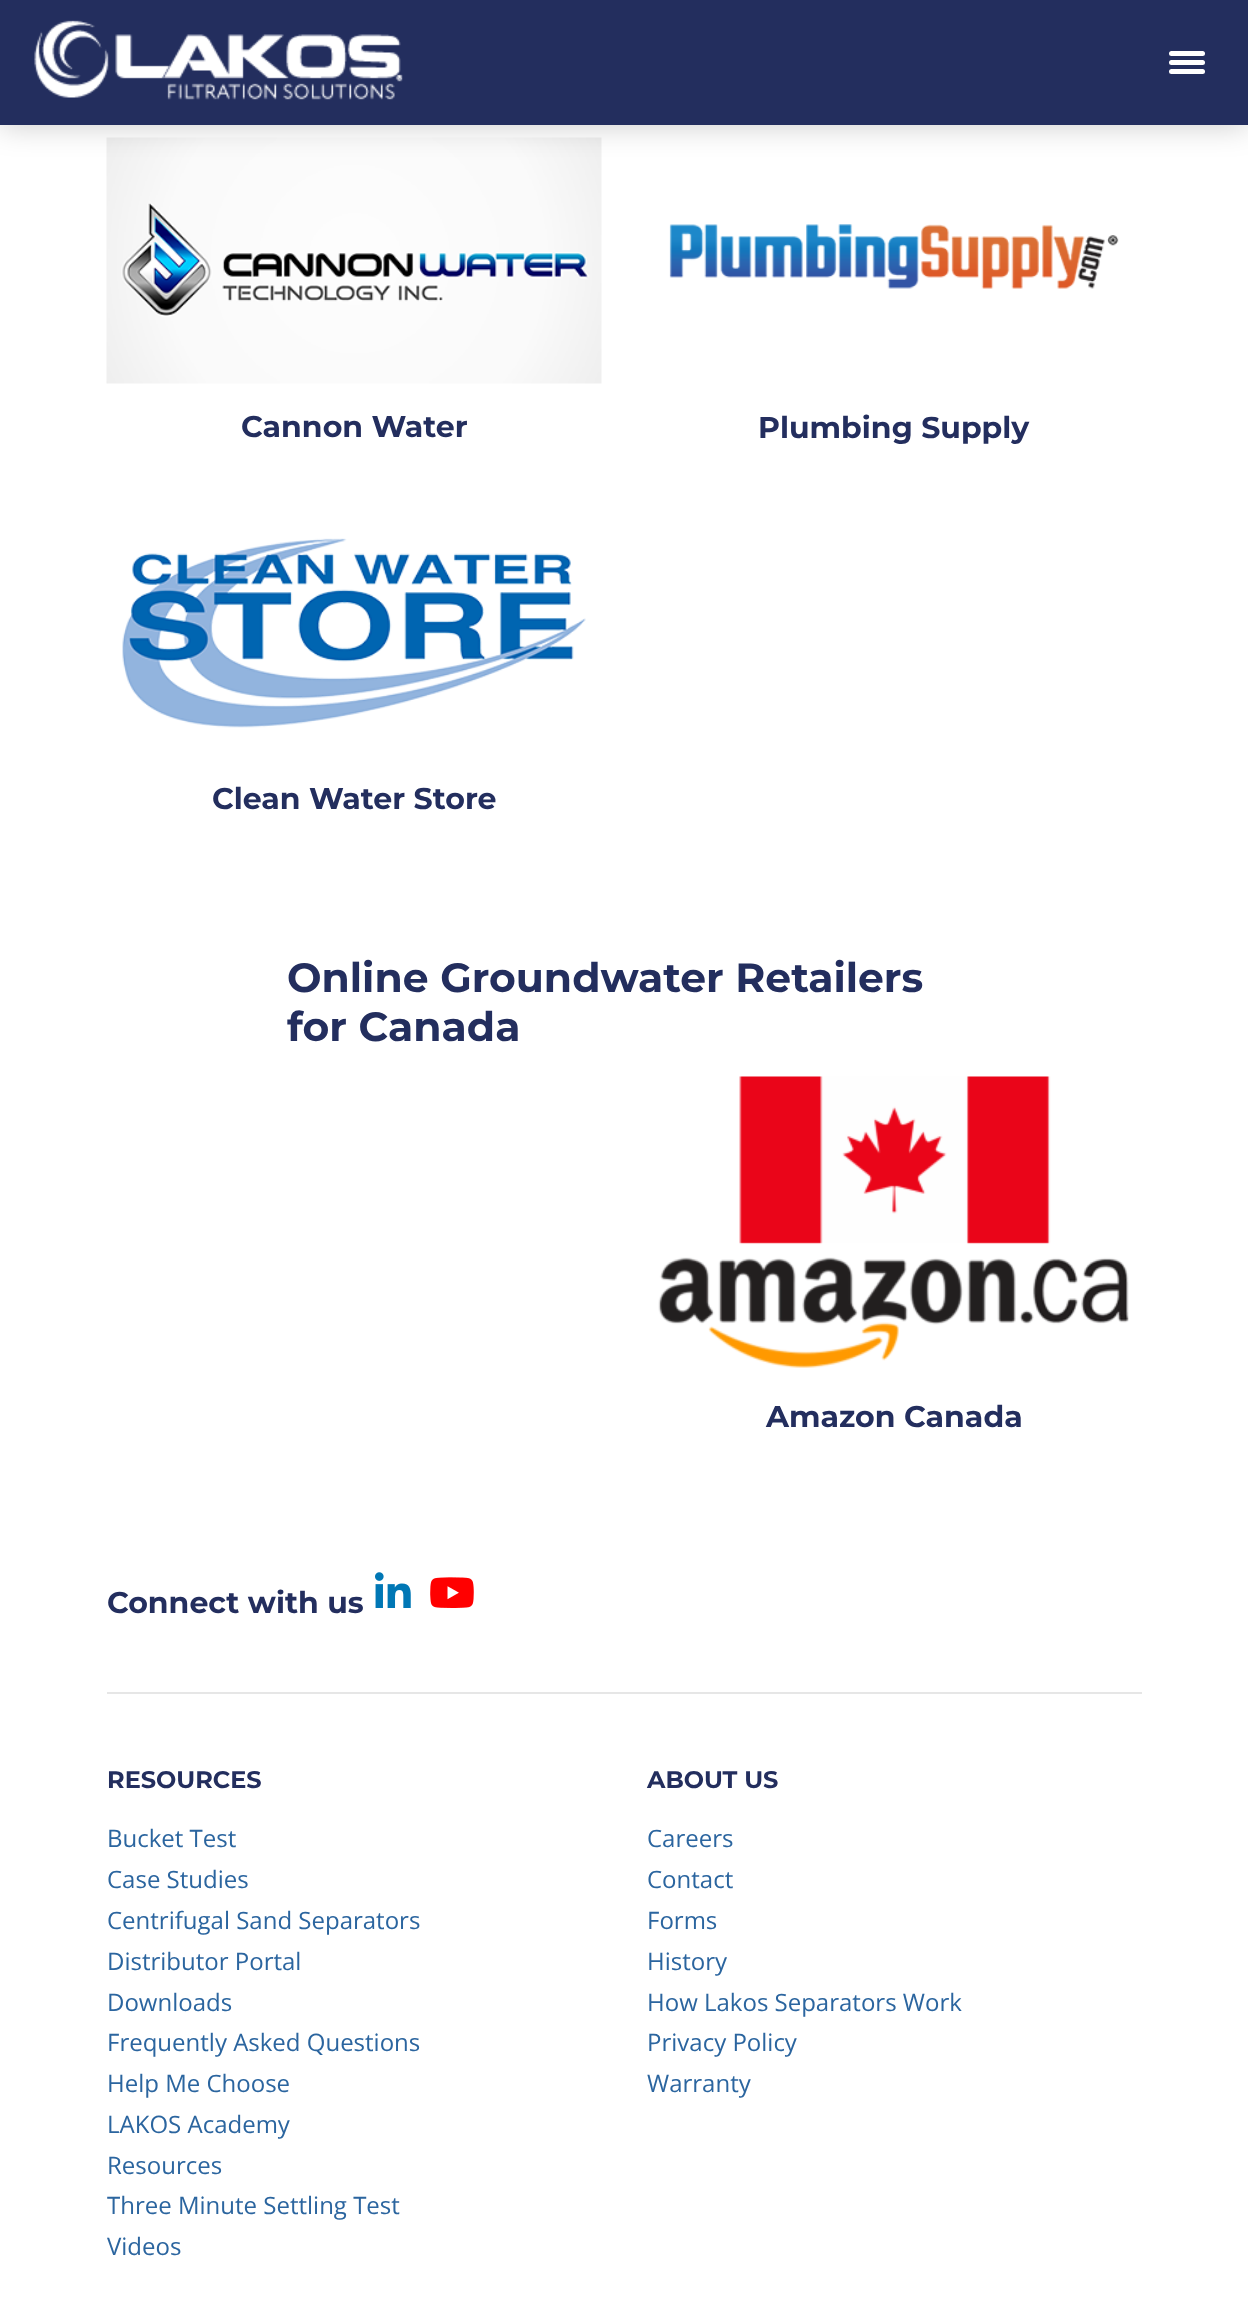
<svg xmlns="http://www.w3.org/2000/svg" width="1248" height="2303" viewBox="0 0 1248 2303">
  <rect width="100%" height="100%" fill="#fff"/>
  <image x="106" y="137" width="496" height="247" href="img/2.png"/>
  <path d="M0 2h1248v124H0z" fill="#00000033" filter="blur(15px)"/>
  <path d="M0 0h1248v125H0z" fill="#232e5e"/>
  <image x="34" y="20" width="369" height="80" href="img/1.png"/>
  <rect x="1169" y="51" width="36" height="5" rx="2.5" fill="#fff"/>
  <rect x="1169" y="60" width="36" height="5" rx="2.5" fill="#fff"/>
  <rect x="1169" y="69" width="36" height="5" rx="2.5" fill="#fff"/>
  <image x="669" y="224" width="450" height="65" href="img/3.png"/>
  <image x="122" y="538" width="464" height="190" href="img/4.png"/>
  <image x="658" y="1076" width="471" height="292" href="img/5.png"/>
  <image x="375" y="1572" width="36" height="36" href="img/6.png"/>
  <image x="430" y="1577" width="44" height="31" href="img/7.png"/>
  <path d="M107 1692h1035v2H107z" fill="#e6e6e6"/>
  <g font-family="Montserrat" font-size="30" font-weight="bold" fill="#232e5e">
    <text x="241" y="437">Cannon Water</text>
    <text x="758" y="438">Plumbing Supply</text>
    <text x="212" y="809">Clean Water Store</text>
  </g>
  <g font-family="Montserrat" font-size="40.9" font-weight="bold" fill="#232e5e">
    <text x="287" y="992">Online Groundwater Retailers</text>
    <text x="287" y="1041">for Canada</text>
  </g>
  <g font-family="Montserrat" font-size="30" font-weight="bold" fill="#232e5e">
    <text x="766" y="1427">Amazon Canada</text>
    <text x="107" y="1613">Connect with us</text>
  </g>
  <text x="107" y="1788" font-family="Montserrat" font-size="24" font-weight="bold" fill="#232e5e">RESOURCES</text>
  <g font-family="Open Sans" font-size="24" fill="#2b659f">
    <text x="107" y="1847">Bucket Test</text>
    <text x="107" y="1888">Case Studies</text>
    <text x="107" y="1929">Centrifugal Sand Separators</text>
    <text x="107" y="1970">Distributor Portal</text>
    <text x="107" y="2011">Downloads</text>
    <text x="107" y="2051">Frequently Asked Questions</text>
    <text x="107" y="2092">Help Me Choose</text>
    <text x="107" y="2133">LAKOS Academy</text>
    <text x="107" y="2174">Resources</text>
    <text x="107" y="2214">Three Minute Settling Test</text>
    <text x="107" y="2255">Videos</text>
  </g>
  <text x="647" y="1788" font-family="Montserrat" font-size="24" font-weight="bold" fill="#232e5e">ABOUT US</text>
  <g font-family="Open Sans" font-size="24" fill="#2b659f">
    <text x="647" y="1847">Careers</text>
    <text x="647" y="1888">Contact</text>
    <text x="647" y="1929">Forms</text>
    <text x="647" y="1970">History</text>
    <text x="647" y="2011">How Lakos Separators Work</text>
    <text x="647" y="2051">Privacy Policy</text>
    <text x="647" y="2092">Warranty</text>
  </g>
</svg>
